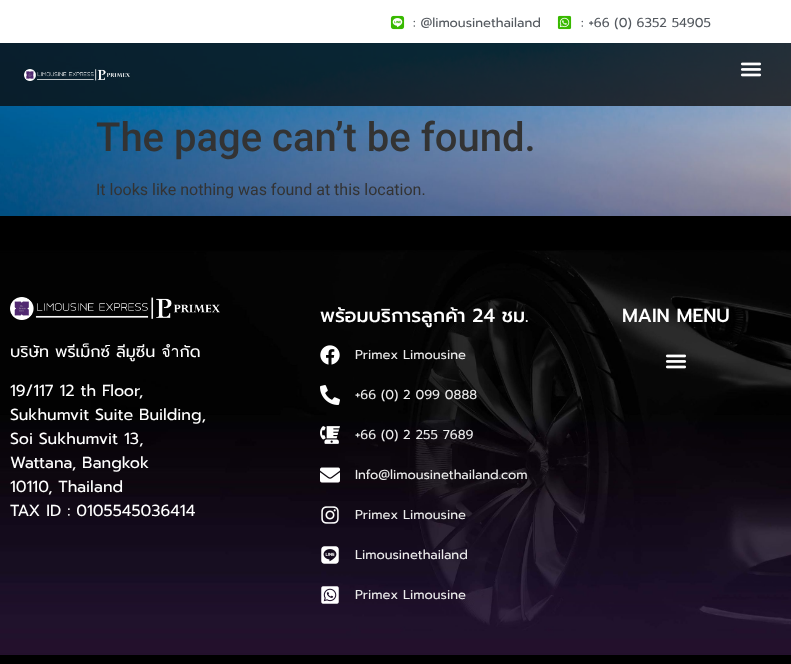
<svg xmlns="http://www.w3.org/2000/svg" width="791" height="664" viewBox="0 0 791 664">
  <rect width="100%" height="100%" fill="#fff"/>
  <image x="0" y="43" width="791" height="173" href="img/1.png"/>
  <image x="390" y="15" width="15" height="15" href="img/2.png"/>
  <image x="557" y="15" width="15" height="15" href="img/3.png"/>
  <path d="M0 43h791v63H0z" fill="#0b0b0bc7"/>
  <image x="24" y="69" width="106" height="12" href="img/4.png"/>
  <image x="740" y="62" width="22" height="15" href="img/5.png"/>
  <path d="M0 216h791v34H0z" fill="#000"/>
  <image x="0" y="250" width="791" height="405" href="img/6.png"/>
  <image x="320" y="345" width="20" height="20" href="img/7.png"/>
  <image x="320" y="385" width="20" height="20" href="img/8.png"/>
  <image x="320" y="426" width="20" height="18" href="img/9.png"/>
  <image x="320" y="467" width="20" height="16" href="img/10.png"/>
  <image x="321" y="506" width="18" height="18" href="img/11.png"/>
  <image x="321" y="546" width="18" height="18" href="img/12.png"/>
  <image x="321" y="586" width="18" height="18" href="img/13.png"/>
  <image x="665" y="354" width="22" height="15" href="img/14.png"/>
  <image x="10" y="297" width="210" height="23" href="img/15.png"/>
  <path d="M0 655h791v9H0z" fill="#000"/>
  <g font-family="Prompt" font-size="13" fill="#54595f">
    <text x="413" y="27">: @limousinethailand</text>
    <text x="581" y="27">: +66 (0) 6352 54905</text>
  </g>
  <text x="96" y="151" font-family="Roboto" font-size="40" font-weight="500" fill="#333">The page can’t be found.</text>
  <text x="96" y="195" font-family="Roboto" font-size="16" fill="#333">It looks like nothing was found at this location.</text>
  <text x="320" y="322" font-family="Prompt" font-size="19" font-weight="500" fill="#fff">พร้อมบริการลูกค้า 24 ชม.</text>
  <g font-family="Prompt" font-size="13" fill="#ebebeb">
    <text x="355" y="359">Primex Limousine</text>
    <text x="355" y="399">+66 (0) 2 099 0888</text>
    <text x="355" y="439">+66 (0) 2 255 7689</text>
    <text x="355" y="479">Info@limousinethailand.com</text>
    <text x="355" y="519">Primex Limousine</text>
    <text x="355" y="559">Limousinethailand</text>
    <text x="355" y="599">Primex Limousine</text>
  </g>
  <text x="622" y="322" font-family="Prompt" font-size="19" font-weight="500" fill="#fff">MAIN MENU</text>
  <g font-family="Prompt" font-size="16" fill="#fff">
    <text x="10" y="357">บริษัท พรีเม็กซ์ ลีมูซีน จำกัด</text>
    <text x="10" y="396">19/117 12 th Floor,</text>
    <text x="10" y="420">Sukhumvit Suite Building,</text>
    <text x="10" y="444">Soi Sukhumvit 13,</text>
    <text x="10" y="468">Wattana, Bangkok</text>
    <text x="10" y="492">10110, Thailand</text>
    <text x="10" y="516">TAX ID : 0105545036414</text>
  </g>
</svg>
